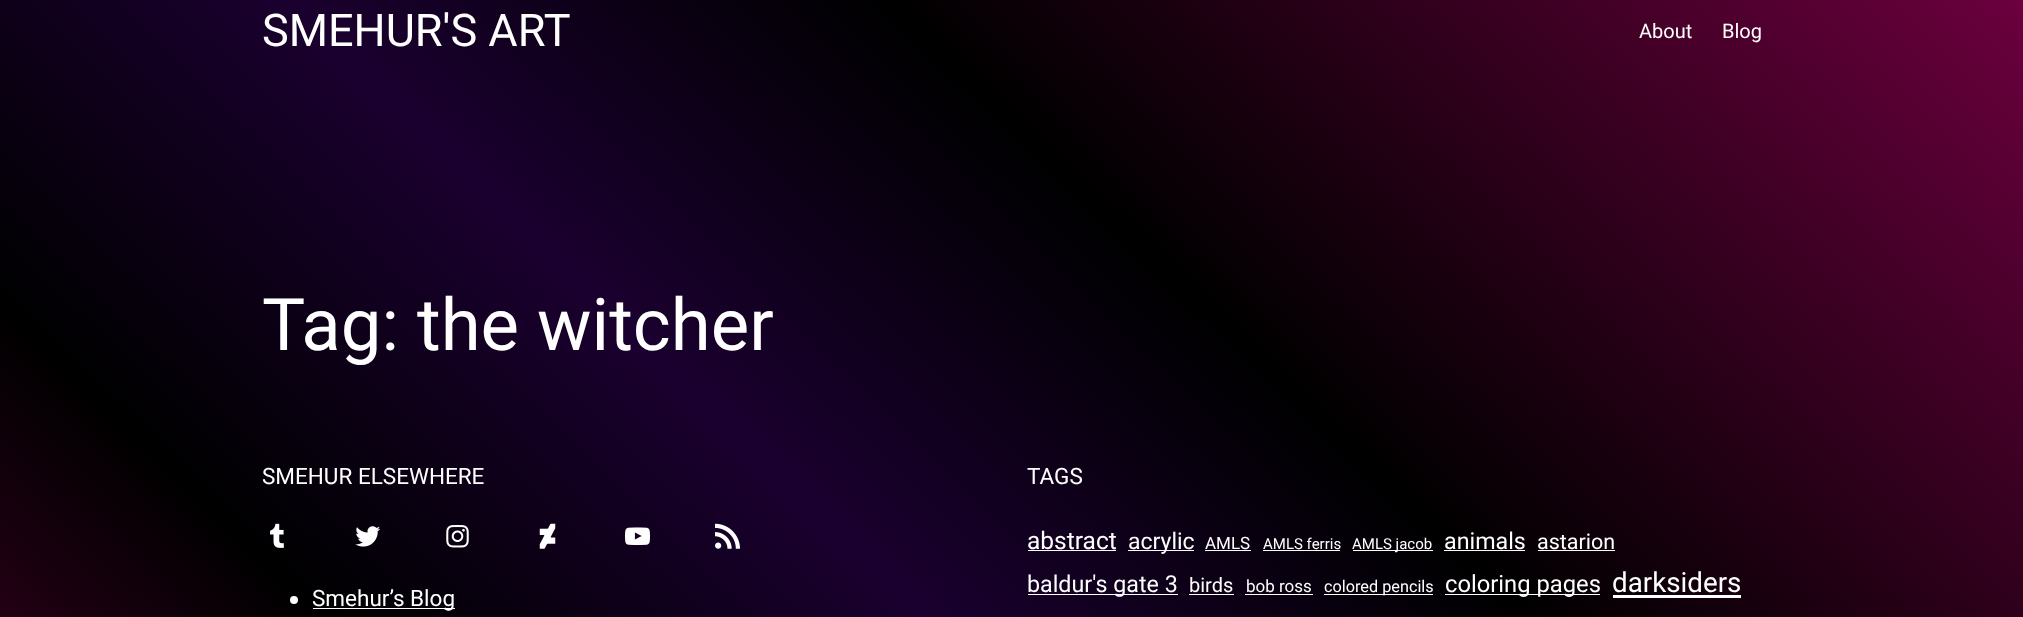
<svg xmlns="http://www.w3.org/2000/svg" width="2023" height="617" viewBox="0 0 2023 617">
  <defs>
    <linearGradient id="g1" gradientUnits="userSpaceOnUse" x1="1817" y1="-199" x2="206" y2="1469"><stop offset="0" stop-color="#6b003e"/><stop offset="0.34" stop-color="#000"/><stop offset="0.52" stop-color="#1a002f"/><stop offset="0.7" stop-color="#000"/><stop offset="1" stop-color="#6b003e"/></linearGradient>
  </defs>
  <rect width="100%" height="100%" fill="#fff"/>
  <path d="M0 0h2023v617H0z" fill="url(#g1)"/>
  <image x="270" y="523" width="14" height="25" href="img/1.png"/>
  <image x="355" y="526" width="26" height="21" href="img/2.png"/>
  <image x="446" y="525" width="23" height="23" href="img/3.png"/>
  <image x="539" y="523" width="17" height="26" href="img/4.png"/>
  <image x="625" y="527" width="25" height="19" href="img/5.png"/>
  <image x="715" y="523" width="25" height="26" href="img/6.png"/>
  <circle cx="294" cy="600" r="4" fill="#fff"/>
  <path d="M313 608h142v1H313z" fill="#fff"/>
  <path d="M1028 550h88v1H1028z" fill="#fff"/>
  <path d="M1128 550h66v1H1128z" fill="#fff"/>
  <path d="M1205 550h46v1H1205z" fill="#fff"/>
  <path d="M1263 550h77v1H1263z" fill="#fff"/>
  <path d="M1353 550h80v1H1353z" fill="#fff"/>
  <path d="M1444 550h81v1H1444z" fill="#fff"/>
  <path d="M1538 550h77v1H1538z" fill="#fff"/>
  <path d="M1028 594h150v1H1028z" fill="#fff"/>
  <path d="M1189 594h45v1H1189z" fill="#fff"/>
  <path d="M1245 594h68v1H1245z" fill="#fff"/>
  <path d="M1324 594h109v1H1324z" fill="#fff"/>
  <path d="M1445 594h155v1H1445z" fill="#fff"/>
  <path d="M1613 595h128v3H1613z" fill="#fff"/>
  <text x="262" y="46" font-family="Roboto" font-size="45" fill="#fff">SMEHUR'S ART</text>
  <g font-family="Roboto" font-size="20" fill="#fff">
    <text x="1639" y="38">About</text>
    <text x="1722" y="38">Blog</text>
  </g>
  <text x="262" y="350" font-family="Roboto" font-size="72.5" fill="#fff">Tag: the witcher</text>
  <g font-family="Roboto" font-size="22.5" fill="#fff">
    <text x="262" y="484">SMEHUR ELSEWHERE</text>
    <text x="312" y="606">Smehur’s Blog</text>
    <text x="1027" y="484">TAGS</text>
  </g>
  <text x="1027" y="549" font-family="Roboto" font-size="24.5" fill="#fff">abstract</text>
  <text x="1128" y="549" font-family="Roboto" font-size="23" fill="#fff">acrylic</text>
  <text x="1205" y="549" font-family="Roboto" font-size="17" fill="#fff">AMLS</text>
  <g font-family="Roboto" font-size="15" fill="#fff">
    <text x="1263" y="549">AMLS ferris</text>
    <text x="1352" y="549">AMLS jacob</text>
  </g>
  <text x="1444" y="549" font-family="Roboto" font-size="23.25" fill="#fff">animals</text>
  <text x="1537" y="549" font-family="Roboto" font-size="21.5" fill="#fff">astarion</text>
  <text x="1027" y="592" font-family="Roboto" font-size="23.25" fill="#fff">baldur's gate 3</text>
  <text x="1189" y="592" font-family="Roboto" font-size="20" fill="#fff">birds</text>
  <text x="1246" y="592" font-family="Roboto" font-size="17" fill="#fff">bob ross</text>
  <text x="1324" y="592" font-family="Roboto" font-size="16.25" fill="#fff">colored pencils</text>
  <text x="1445" y="592" font-family="Roboto" font-size="23.75" fill="#fff">coloring pages</text>
  <text x="1612" y="592" font-family="Roboto" font-size="27.75" fill="#fff">darksiders</text>
</svg>
